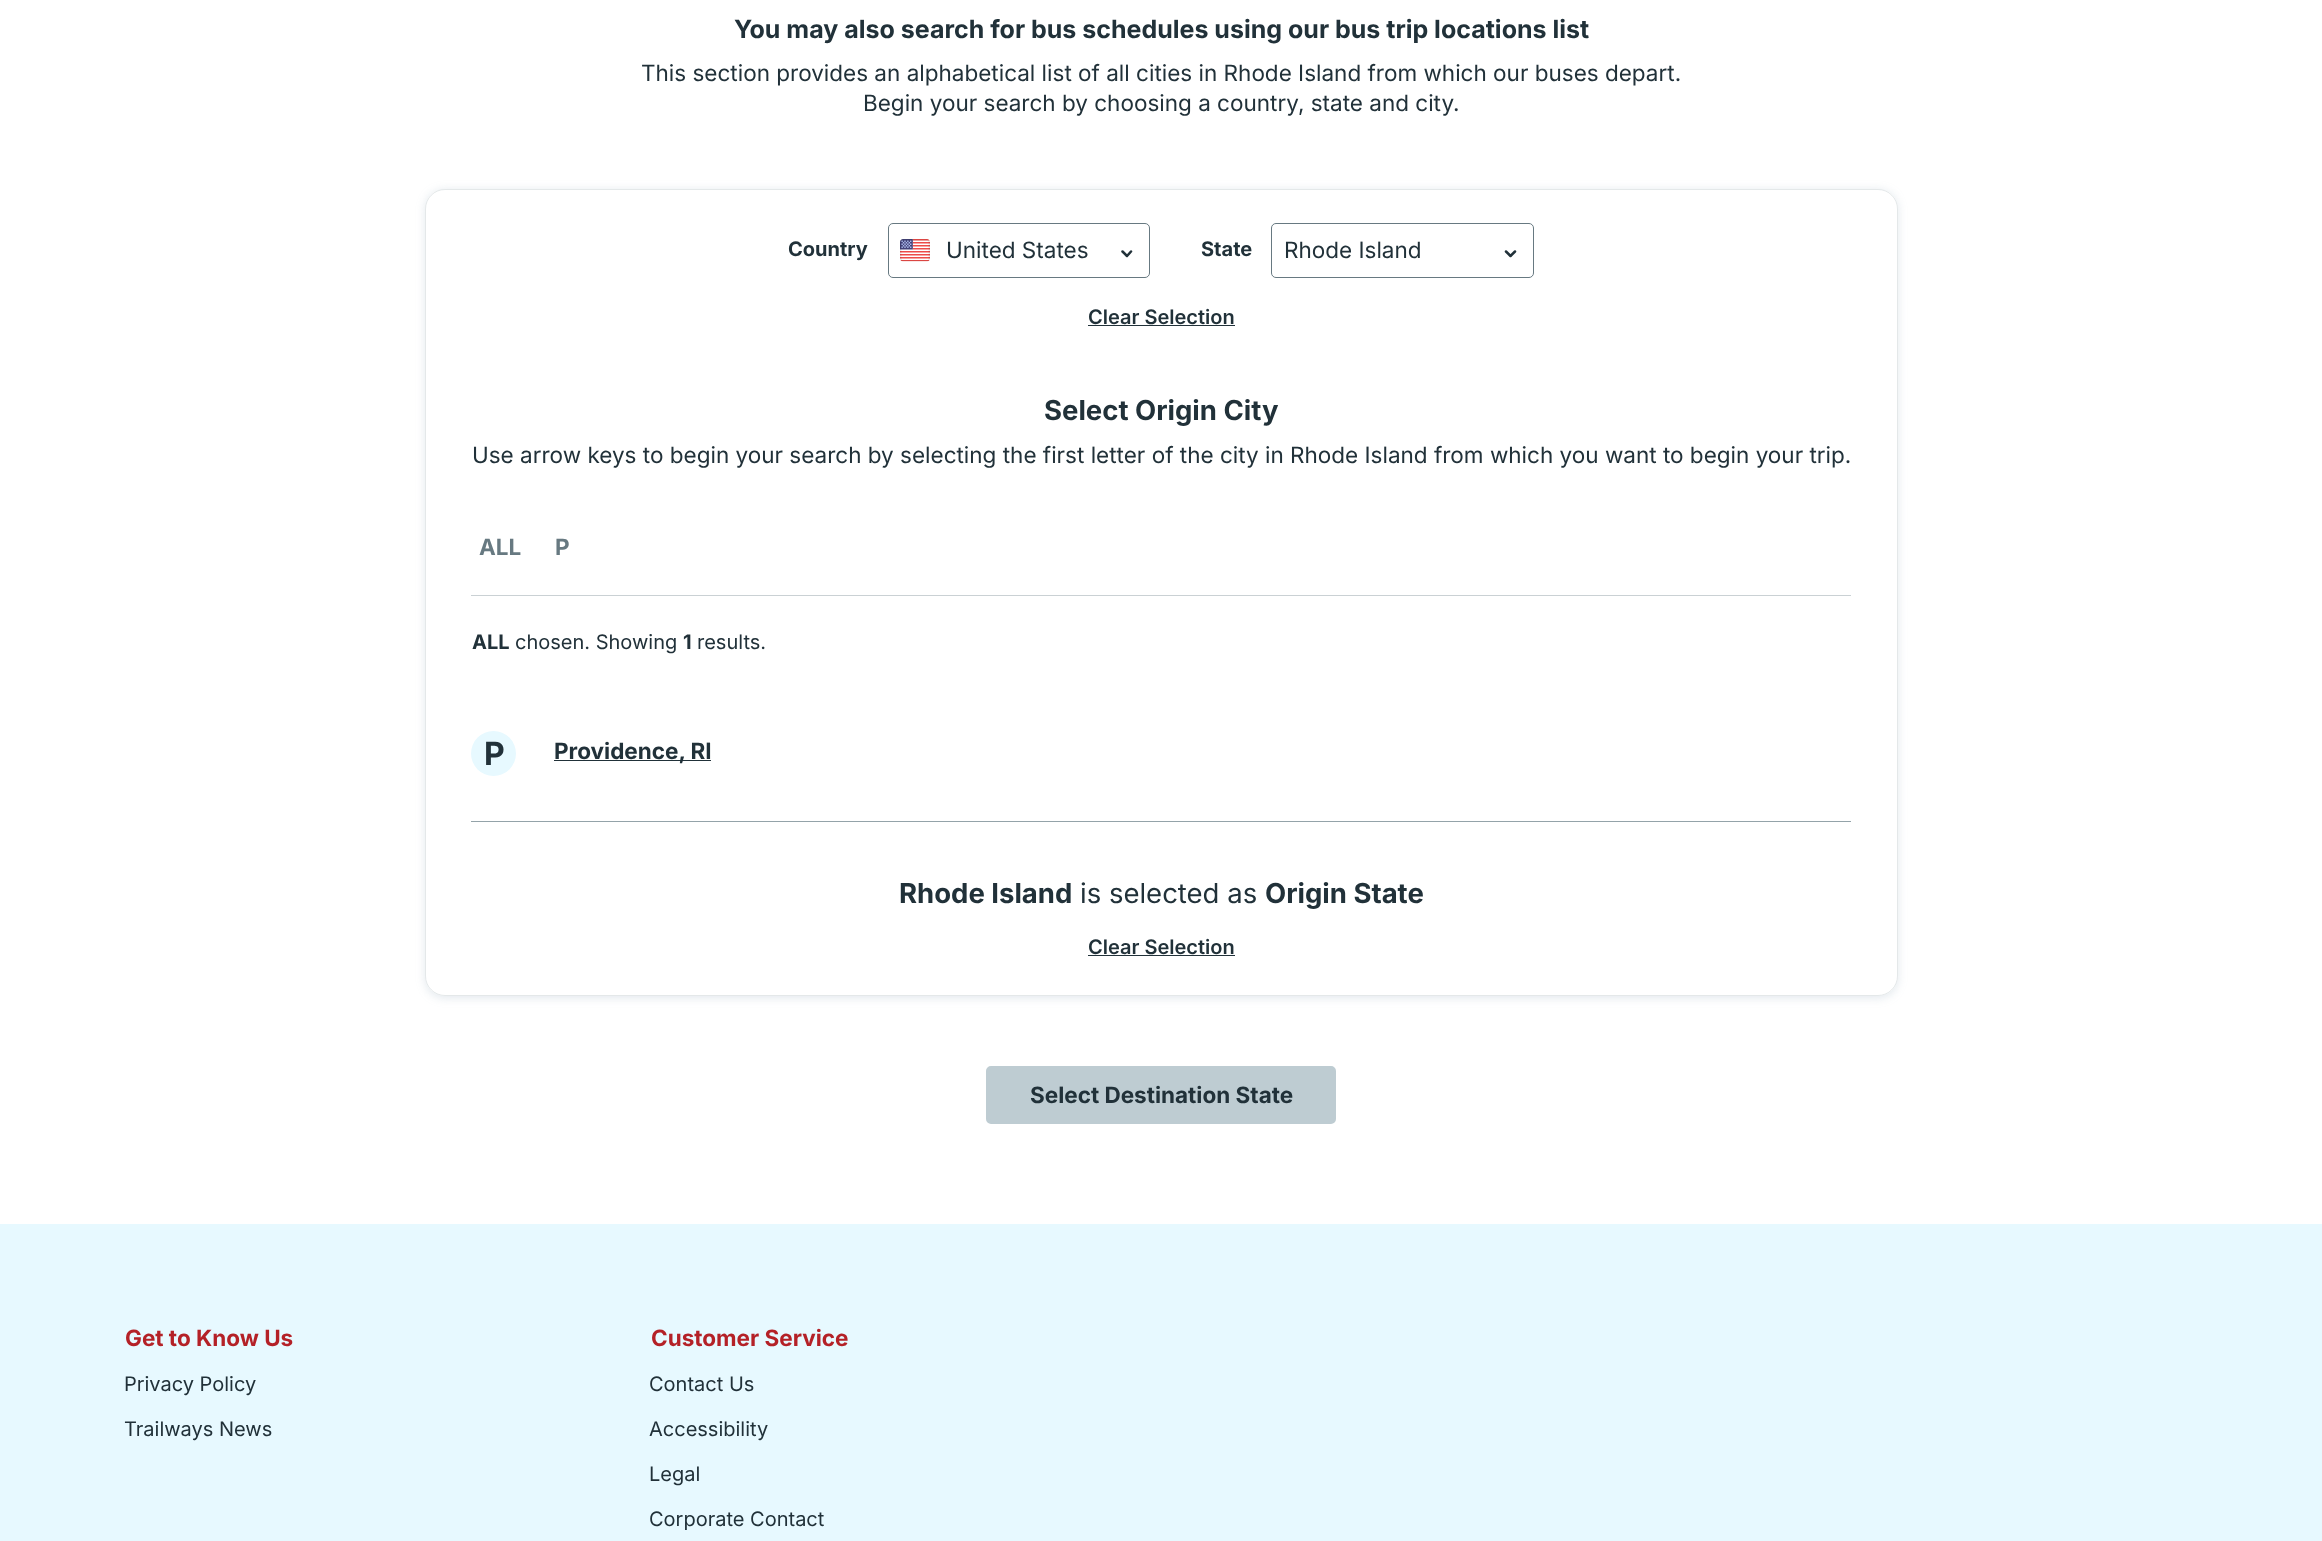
<svg xmlns="http://www.w3.org/2000/svg" width="2322" height="1541" viewBox="0 0 2322 1541">
  <rect width="100%" height="100%" fill="#fff"/>
  <rect x="425" y="190" width="1473" height="808" rx="20" fill="#708ba333" filter="blur(5px)"/>
  <rect x="425" y="189" width="1473" height="807" rx="20" fill="#fff"/>
  <rect x="425.5" y="189.5" width="1472" height="806" rx="19.5" fill="none" stroke="#94a3a940"/>
  <rect x="888.5" y="223.5" width="261" height="54" rx="4.5" fill="none" stroke="#677981"/>
  <image x="900" y="239" width="30" height="23" href="img/1.png"/>
  <path d="M1122.5 251.5L1127 256L1131 251.5" fill="none" stroke="#213139" stroke-width="2.5" stroke-linecap="round" stroke-linejoin="round"/>
  <rect x="1271.5" y="223.5" width="262" height="54" rx="4.5" fill="none" stroke="#677981"/>
  <path d="M1506 251.5L1510.5 256L1515 251.5" fill="none" stroke="#213139" stroke-width="2.5" stroke-linecap="round" stroke-linejoin="round"/>
  <path d="M1088 325h147v1H1088z" fill="#213139"/>
  <path d="M471 595h1380v1H471z" fill="#cad1d4"/>
  <path d="M471 821h1380v1H471z" fill="#94a3a9"/>
  <circle cx="493.5" cy="753.5" r="22.5" fill="#e7f9ff"/>
  <path d="M554 760h157v1H554z" fill="#213139"/>
  <path d="M1088 955h147v1H1088z" fill="#213139"/>
  <rect x="988" y="1068" width="346" height="54" rx="3" fill="#beccd2" stroke="#beccd2" stroke-width="4"/>
  <path d="M0 1224h2322v317H0z" fill="#e7f9ff"/>
  <text x="734" y="38" font-family="Inter" font-size="25" font-weight="bold" fill="#213139">You may also search for bus schedules using our bus trip locations list</text>
  <g font-family="Inter" font-size="22.5" fill="#213139">
    <text x="641" y="81">This section provides an alphabetical list of all cities in Rhode Island from which our buses depart.</text>
    <text x="863" y="111">Begin your search by choosing a country, state and city.</text>
  </g>
  <text x="788" y="256" font-family="Inter" font-size="20" font-weight="bold" fill="#213139">Country</text>
  <text x="946" y="258" font-family="Inter" font-size="22.5" fill="#213139">United States</text>
  <text x="1201" y="256" font-family="Inter" font-size="20" font-weight="bold" fill="#213139">State</text>
  <text x="1284" y="258" font-family="Inter" font-size="22.5" fill="#213139">Rhode Island</text>
  <text x="1088" y="324" font-family="Inter" font-size="20" font-weight="600" fill="#213139">Clear Selection</text>
  <text x="1044" y="420" font-family="Inter" font-size="27.5" font-weight="bold" fill="#213139">Select Origin City</text>
  <text x="472" y="463" font-family="Inter" font-size="22.5" fill="#213139">Use arrow keys to begin your search by selecting the first letter of the city in Rhode Island from which you want to begin your trip.</text>
  <g font-family="Inter" font-size="22.5" font-weight="bold" fill="#677981">
    <text x="479" y="555">ALL</text>
    <text x="555" y="555">P</text>
  </g>
  <text x="472" y="649" font-family="Inter" font-size="20" font-weight="bold" fill="#213139">ALL</text>
  <text x="515" y="649" font-family="Inter" font-size="20" fill="#213139">chosen. Showing</text>
  <text x="683" y="649" font-family="Inter" font-size="20" font-weight="bold" fill="#213139">1</text>
  <text x="697" y="649" font-family="Inter" font-size="20" fill="#213139">results.</text>
  <text x="484" y="765" font-family="Inter" font-size="32" font-weight="bold" fill="#213139">P</text>
  <text x="554" y="759" font-family="Inter" font-size="22.5" font-weight="bold" fill="#213139">Providence, RI</text>
  <text x="899" y="903" font-family="Inter" font-size="27.5" font-weight="bold" fill="#213139">Rhode Island</text>
  <text x="1080" y="903" font-family="Inter" font-size="27.5" fill="#213139">is selected as</text>
  <text x="1265" y="903" font-family="Inter" font-size="27.5" font-weight="bold" fill="#213139">Origin State</text>
  <text x="1088" y="954" font-family="Inter" font-size="20" font-weight="600" fill="#213139">Clear Selection</text>
  <text x="1030" y="1103" font-family="Inter" font-size="22.5" font-weight="bold" fill="#213139">Select Destination State</text>
  <text x="125" y="1346" font-family="Inter" font-size="22.5" font-weight="bold" fill="#b42127">Get to Know Us</text>
  <g font-family="Inter" font-size="20" fill="#213139">
    <text x="124" y="1391">Privacy Policy</text>
    <text x="124" y="1436">Trailways News</text>
  </g>
  <text x="651" y="1346" font-family="Inter" font-size="22.5" font-weight="bold" fill="#b42127">Customer Service</text>
  <g font-family="Inter" font-size="20" fill="#213139">
    <text x="649" y="1391">Contact Us</text>
    <text x="649" y="1436">Accessibility</text>
    <text x="649" y="1481">Legal</text>
    <text x="649" y="1526">Corporate Contact</text>
  </g>
</svg>
